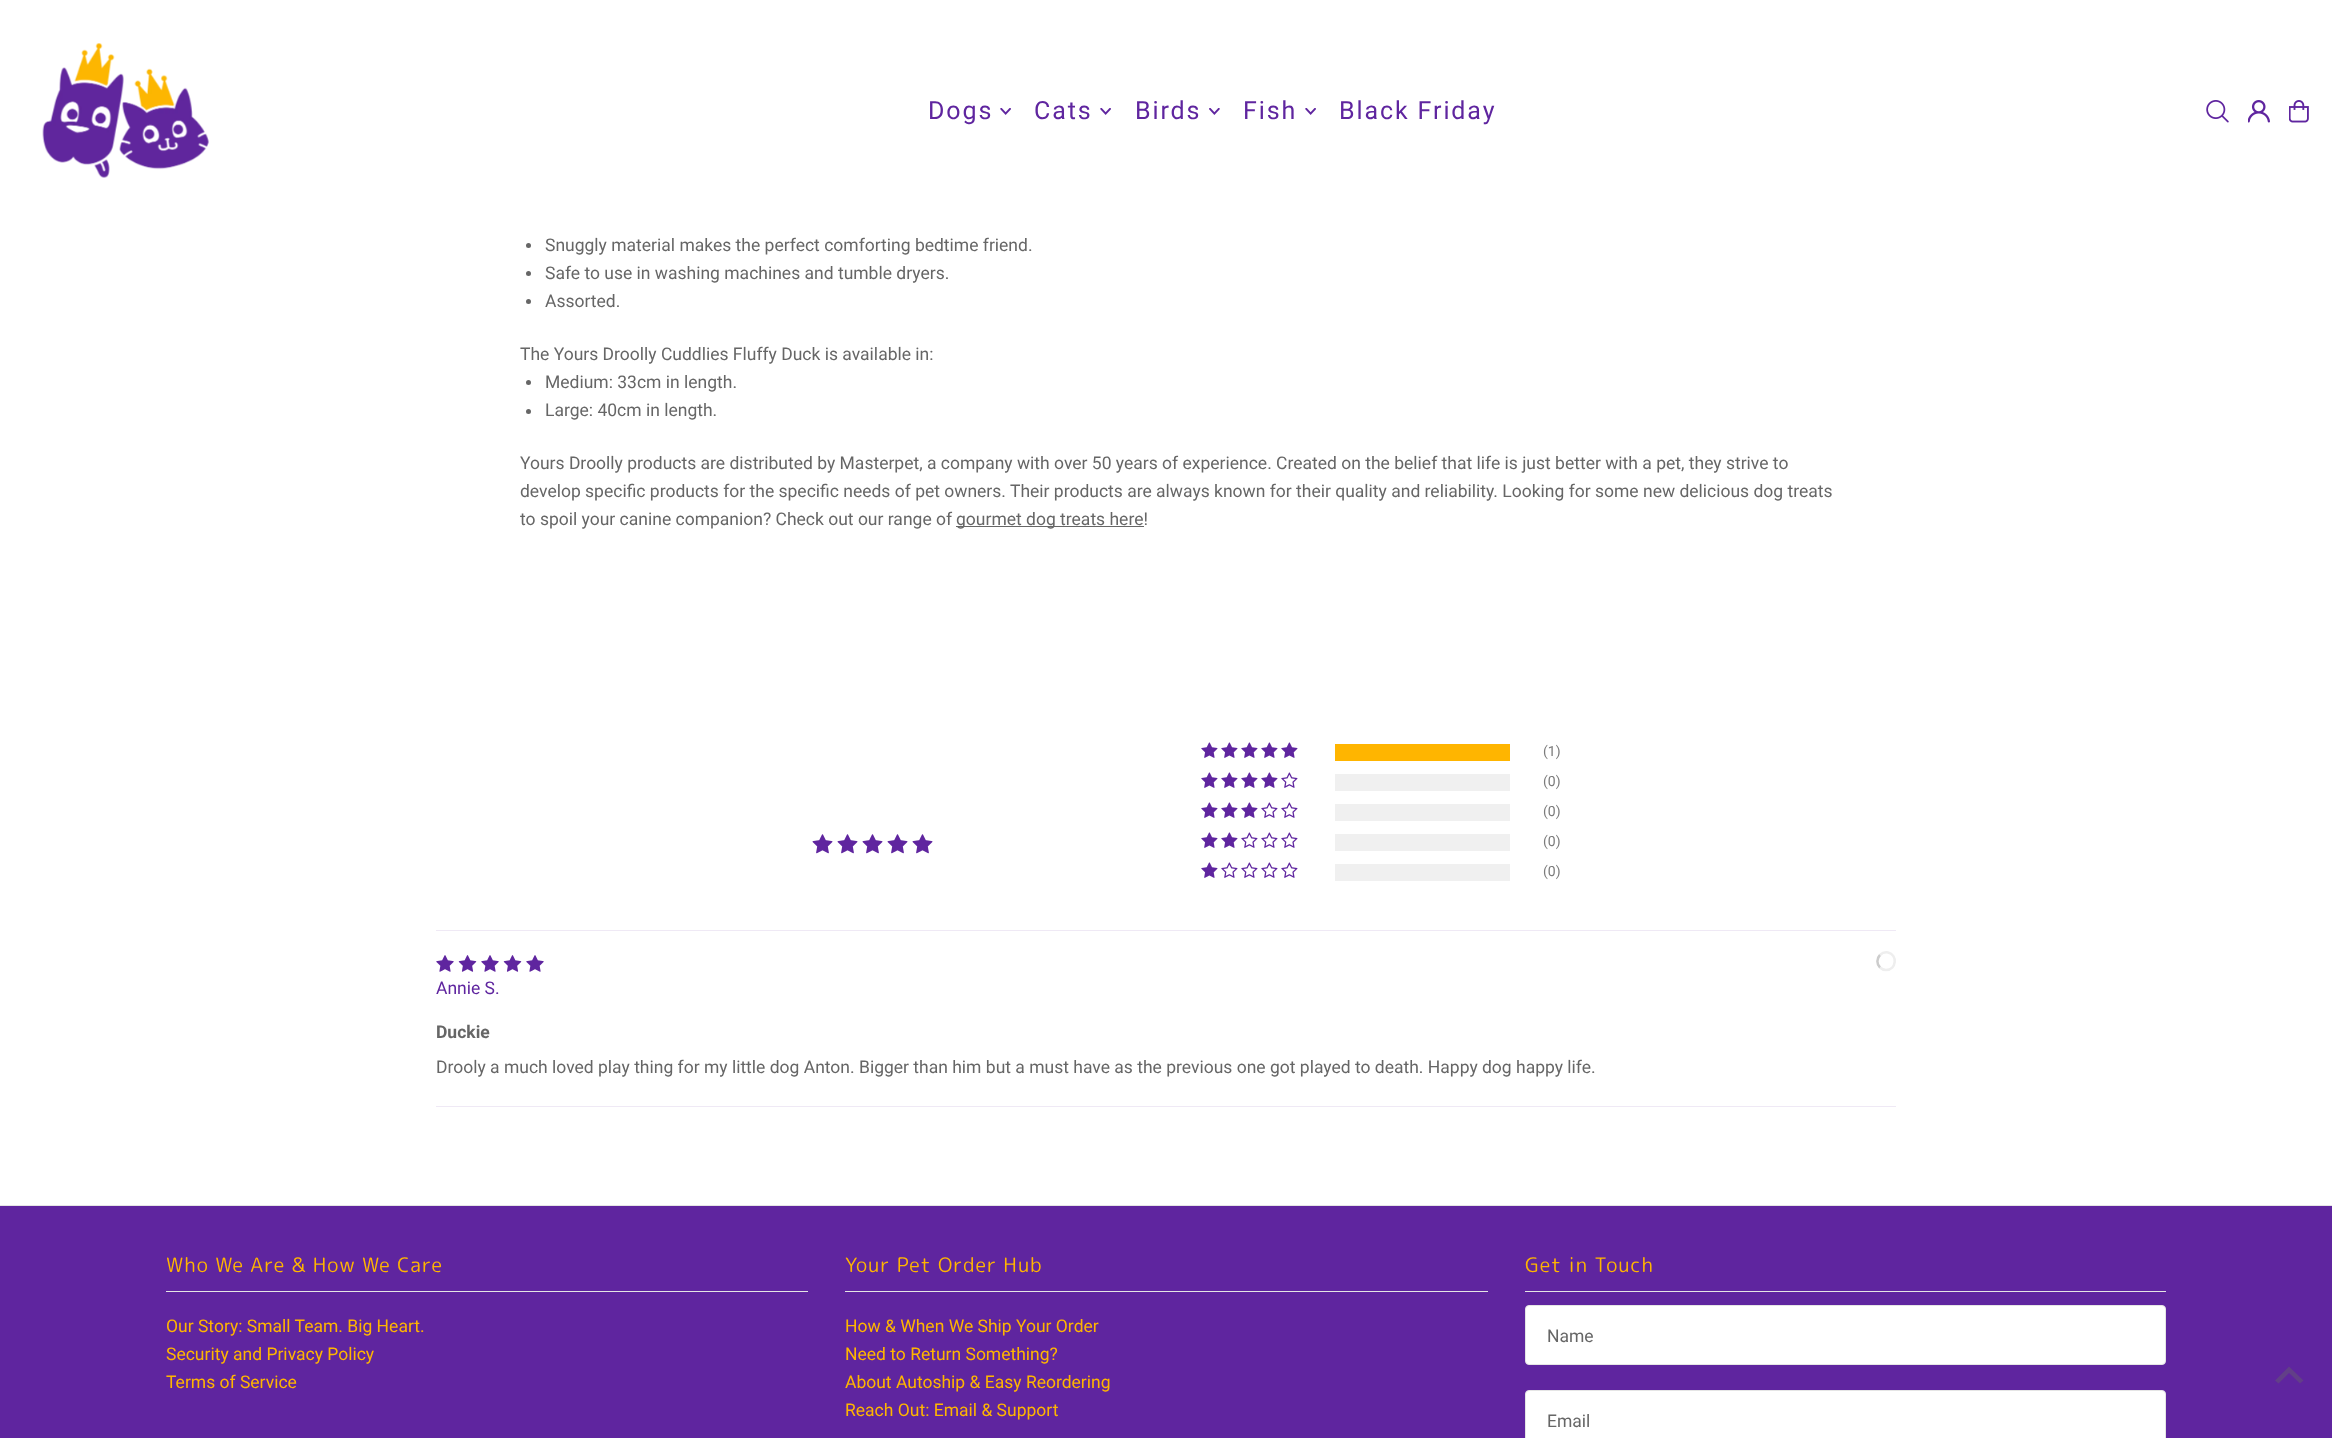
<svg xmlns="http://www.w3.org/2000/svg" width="2332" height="1438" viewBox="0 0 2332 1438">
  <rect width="100%" height="100%" fill="#fff"/>
  <image x="42" y="43" width="167" height="135" href="img/1.png"/>
  <image x="1000" y="108" width="11" height="7" href="img/2.png"/>
  <image x="1100" y="108" width="11" height="7" href="img/2.png"/>
  <image x="1209" y="108" width="11" height="7" href="img/3.png"/>
  <image x="1305" y="108" width="11" height="7" href="img/2.png"/>
  <image x="2206" y="100" width="23" height="23" href="img/4.png"/>
  <image x="2248" y="100" width="22" height="23" href="img/5.png"/>
  <image x="2289" y="100" width="20" height="23" href="img/6.png"/>
  <circle cx="528.5" cy="245.5" r="2.5" fill="#666"/>
  <circle cx="528.5" cy="273.5" r="2.5" fill="#666"/>
  <circle cx="528.5" cy="301.5" r="2.5" fill="#666"/>
  <circle cx="528.5" cy="382.5" r="2.5" fill="#666"/>
  <circle cx="528.5" cy="411.5" r="2.5" fill="#666"/>
  <path d="M956 526h188v1H956z" fill="#666"/>
  <image x="812" y="834" width="21" height="20" href="img/7.png"/>
  <image x="837" y="834" width="21" height="20" href="img/7.png"/>
  <image x="862" y="834" width="21" height="20" href="img/7.png"/>
  <image x="887" y="834" width="21" height="20" href="img/7.png"/>
  <image x="912" y="834" width="21" height="20" href="img/7.png"/>
  <image x="1201" y="742" width="17" height="16" href="img/8.png"/>
  <image x="1221" y="742" width="17" height="16" href="img/8.png"/>
  <image x="1241" y="742" width="17" height="16" href="img/8.png"/>
  <image x="1261" y="742" width="17" height="16" href="img/8.png"/>
  <image x="1281" y="742" width="17" height="16" href="img/8.png"/>
  <path d="M1335 744h175v17H1335z" fill="#ffb500"/>
  <image x="1201" y="772" width="17" height="16" href="img/8.png"/>
  <image x="1221" y="772" width="17" height="16" href="img/8.png"/>
  <image x="1241" y="772" width="17" height="16" href="img/8.png"/>
  <image x="1261" y="772" width="17" height="16" href="img/8.png"/>
  <image x="1281" y="772" width="17" height="16" href="img/9.png"/>
  <path d="M1335 774h175v17H1335z" fill="#f0f0f0"/>
  <image x="1201" y="802" width="17" height="16" href="img/8.png"/>
  <image x="1221" y="802" width="17" height="16" href="img/8.png"/>
  <image x="1241" y="802" width="17" height="16" href="img/8.png"/>
  <image x="1261" y="802" width="17" height="16" href="img/9.png"/>
  <image x="1281" y="802" width="17" height="16" href="img/9.png"/>
  <path d="M1335 804h175v17H1335z" fill="#f0f0f0"/>
  <image x="1201" y="832" width="17" height="16" href="img/8.png"/>
  <image x="1221" y="832" width="17" height="16" href="img/8.png"/>
  <image x="1241" y="832" width="17" height="16" href="img/9.png"/>
  <image x="1261" y="832" width="17" height="16" href="img/9.png"/>
  <image x="1281" y="832" width="17" height="16" href="img/9.png"/>
  <path d="M1335 834h175v17H1335z" fill="#f0f0f0"/>
  <image x="1201" y="862" width="17" height="16" href="img/8.png"/>
  <image x="1221" y="862" width="17" height="16" href="img/9.png"/>
  <image x="1241" y="862" width="17" height="16" href="img/9.png"/>
  <image x="1261" y="862" width="17" height="16" href="img/9.png"/>
  <image x="1281" y="862" width="17" height="16" href="img/9.png"/>
  <path d="M1335 864h175v17H1335z" fill="#f0f0f0"/>
  <path d="M436 930h1460v1H436z" fill="#efe9f5"/>
  <image x="436" y="955" width="18" height="17" href="img/10.png"/>
  <image x="458" y="955" width="19" height="17" href="img/11.png"/>
  <image x="481" y="955" width="18" height="17" href="img/10.png"/>
  <image x="503" y="955" width="19" height="17" href="img/11.png"/>
  <image x="526" y="955" width="18" height="17" href="img/10.png"/>
  <path d="M1880 955C1882 953 1885 952 1888 952.5C1898 954.5 1896.5 970 1886 970C1884 970 1881.5 969 1880 967.5" fill="none" stroke="#eee" stroke-width="2.5"/>
  <path d="M1880 967.5C1876.5 964 1876.5 958.5 1880 955" fill="none" stroke="#ccc" stroke-width="2.5"/>
  <path d="M436 1106h1460v1H436z" fill="#efe9f5"/>
  <path d="M0 1206h2332v232H0z" fill="#5f259f"/>
  <path d="M0 1205h2332v1H0z" fill="#e5e5e5"/>
  <path d="M166 1291h642v1H166z" fill="#e5e5e5"/>
  <path d="M845 1291h643v1H845z" fill="#e5e5e5"/>
  <path d="M1525 1291h641v1H1525z" fill="#e5e5e5"/>
  <rect x="1525.5" y="1305.5" width="640" height="59" rx="3.5" fill="#fff" stroke="#e5e5e5"/>
  <rect x="1525.5" y="1390.5" width="640" height="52" rx="3.5" fill="#fff" stroke="#e5e5e5"/>
  <path d="M2289 1366.5L2275 1380.5L2278.5 1383.5L2289 1373L2300 1383.5L2303.5 1380.5Z" fill="#623f88"/>
  <g font-family="Roboto" font-size="25" letter-spacing="1.9" fill="#5f259f">
    <text x="928" y="119">Dogs</text>
    <text x="1034" y="119">Cats</text>
    <text x="1135" y="119">Birds</text>
    <text x="1243" y="119">Fish</text>
    <text x="1339" y="119">Black Friday</text>
  </g>
  <g font-family="Roboto" font-size="17.5" fill="#666">
    <text x="545" y="251">Snuggly material makes the perfect comforting bedtime friend.</text>
    <text x="545" y="279">Safe to use in washing machines and tumble dryers.</text>
    <text x="545" y="307">Assorted.</text>
    <text x="520" y="360">The Yours Droolly Cuddlies Fluffy Duck is available in:</text>
    <text x="545" y="388">Medium: 33cm in length.</text>
    <text x="545" y="416">Large: 40cm in length.</text>
    <text x="520" y="469">Yours Droolly products are distributed by Masterpet, a company with over 50 years of experience. Created on the belief that life is just better with a pet, they strive to</text>
    <text x="520" y="497">develop specific products for the specific needs of pet owners. Their products are always known for their quality and reliability. Looking for some new delicious dog treats</text>
    <text x="520" y="525">to spoil your canine companion? Check out our range of</text>
    <text x="956" y="525">gourmet dog treats here!</text>
  </g>
  <g font-family="Roboto" font-size="14" fill="#7b7b7b">
    <text x="1543" y="756">(1)</text>
    <text x="1543" y="786">(0)</text>
    <text x="1543" y="816">(0)</text>
    <text x="1543" y="846">(0)</text>
    <text x="1543" y="876">(0)</text>
  </g>
  <text x="436" y="994" font-family="Roboto" font-size="17.5" fill="#5f259f">Annie S.</text>
  <text x="436" y="1038" font-family="Roboto" font-size="17.5" font-weight="bold" fill="#666">Duckie</text>
  <text x="436" y="1073" font-family="Roboto" font-size="17.5" fill="#666">Drooly a much loved play thing for my little dog Anton. Bigger than him but a must have as the previous one got played to death. Happy dog happy life.</text>
  <text x="166" y="1272" font-family="'Rounded Mplus 1c'" font-size="20" letter-spacing="1" fill="#ffb500">Who We Are &amp; How We Care</text>
  <g font-family="Roboto" font-size="17.5" fill="#ffb500">
    <text x="166" y="1332">Our Story: Small Team. Big Heart.</text>
    <text x="166" y="1360">Security and Privacy Policy</text>
    <text x="166" y="1388">Terms of Service</text>
  </g>
  <text x="845" y="1272" font-family="'Rounded Mplus 1c'" font-size="20" letter-spacing="1" fill="#ffb500">Your Pet Order Hub</text>
  <g font-family="Roboto" font-size="17.5" fill="#ffb500">
    <text x="845" y="1332">How &amp; When We Ship Your Order</text>
    <text x="845" y="1360">Need to Return Something?</text>
    <text x="845" y="1388">About Autoship &amp; Easy Reordering</text>
    <text x="845" y="1416">Reach Out: Email &amp; Support</text>
  </g>
  <text x="1525" y="1272" font-family="'Rounded Mplus 1c'" font-size="20" letter-spacing="1" fill="#ffb500">Get in Touch</text>
  <g font-family="Roboto" font-size="17.5" fill="#666">
    <text x="1547" y="1342">Name</text>
    <text x="1547" y="1427">Email</text>
  </g>
</svg>
